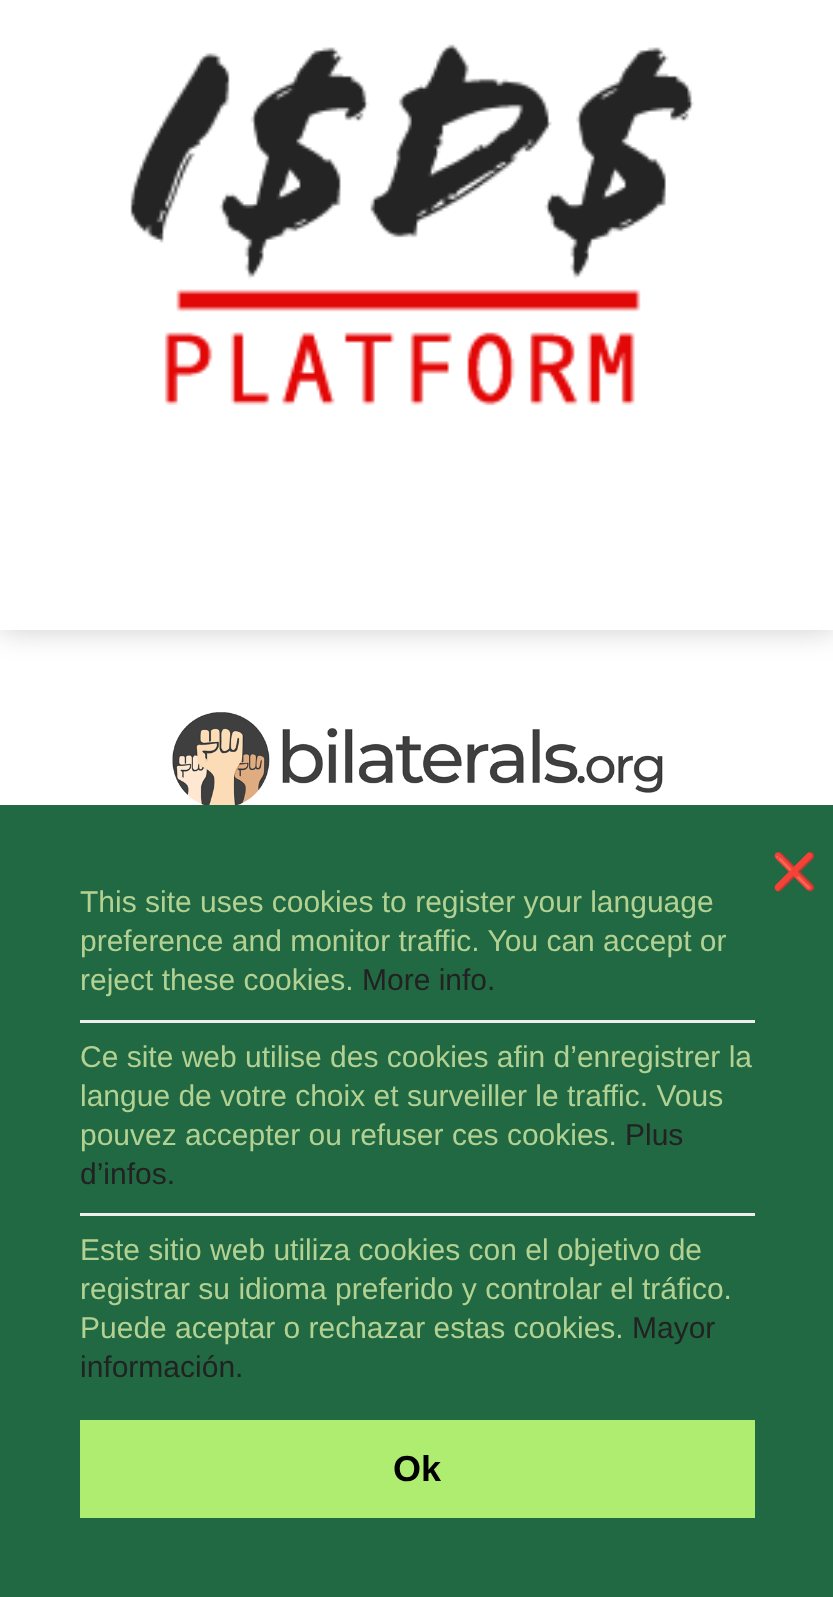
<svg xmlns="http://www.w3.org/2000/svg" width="833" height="1597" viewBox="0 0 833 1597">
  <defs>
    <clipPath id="clip1"><path d="M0 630h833v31H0z"/></clipPath>
  </defs>
  <rect width="100%" height="100%" fill="#fff"/>
  <g clip-path="url(#clip1)">
    <path d="M0 -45h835v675H0z" fill="#ccc" filter="blur(15px)"/>
  </g>
  <image x="130" y="44" width="564" height="362" href="img/1.png"/>
  <image x="172" y="712" width="491" height="93" href="img/2.png"/>
  <path d="M0 805h833v792H0z" fill="#216942"/>
  <path d="M80 1020h675v3H80z" fill="#eee"/>
  <path d="M80 1213h675v3H80z" fill="#eee"/>
  <path d="M80 1420h675v98H80z" fill="#afed71"/>
  <text x="772" y="884" font-family="Noto Color Emoji" font-size="36" fill="#a4c78a">❌</text>
  <g font-family="Liberation Sans" font-size="30" fill="#b2d192">
    <text x="80" y="912">This site uses cookies to register your language</text>
    <text x="80" y="951">preference and monitor traffic. You can accept or</text>
    <text x="80" y="990">reject these cookies.</text>
  </g>
  <text x="362" y="990" font-family="Liberation Sans" font-size="30" fill="#222">More info.</text>
  <g font-family="Liberation Sans" font-size="30" fill="#b2d192">
    <text x="80" y="1067">Ce site web utilise des cookies afin d’enregistrer la</text>
    <text x="80" y="1106">langue de votre choix et surveiller le traffic. Vous</text>
    <text x="80" y="1145">pouvez accepter ou refuser ces cookies.</text>
  </g>
  <g font-family="Liberation Sans" font-size="30" fill="#222">
    <text x="625" y="1145">Plus</text>
    <text x="80" y="1184">d’infos.</text>
  </g>
  <g font-family="Liberation Sans" font-size="30" fill="#b2d192">
    <text x="80" y="1260">Este sitio web utiliza cookies con el objetivo de</text>
    <text x="80" y="1299">registrar su idioma preferido y controlar el tráfico.</text>
    <text x="80" y="1338">Puede aceptar o rechazar estas cookies.</text>
  </g>
  <g font-family="Liberation Sans" font-size="30" fill="#222">
    <text x="632" y="1338">Mayor</text>
    <text x="80" y="1377">información.</text>
  </g>
  <text x="393" y="1481" font-family="Liberation Sans" font-size="36" font-weight="bold" fill="#000">Ok</text>
</svg>
